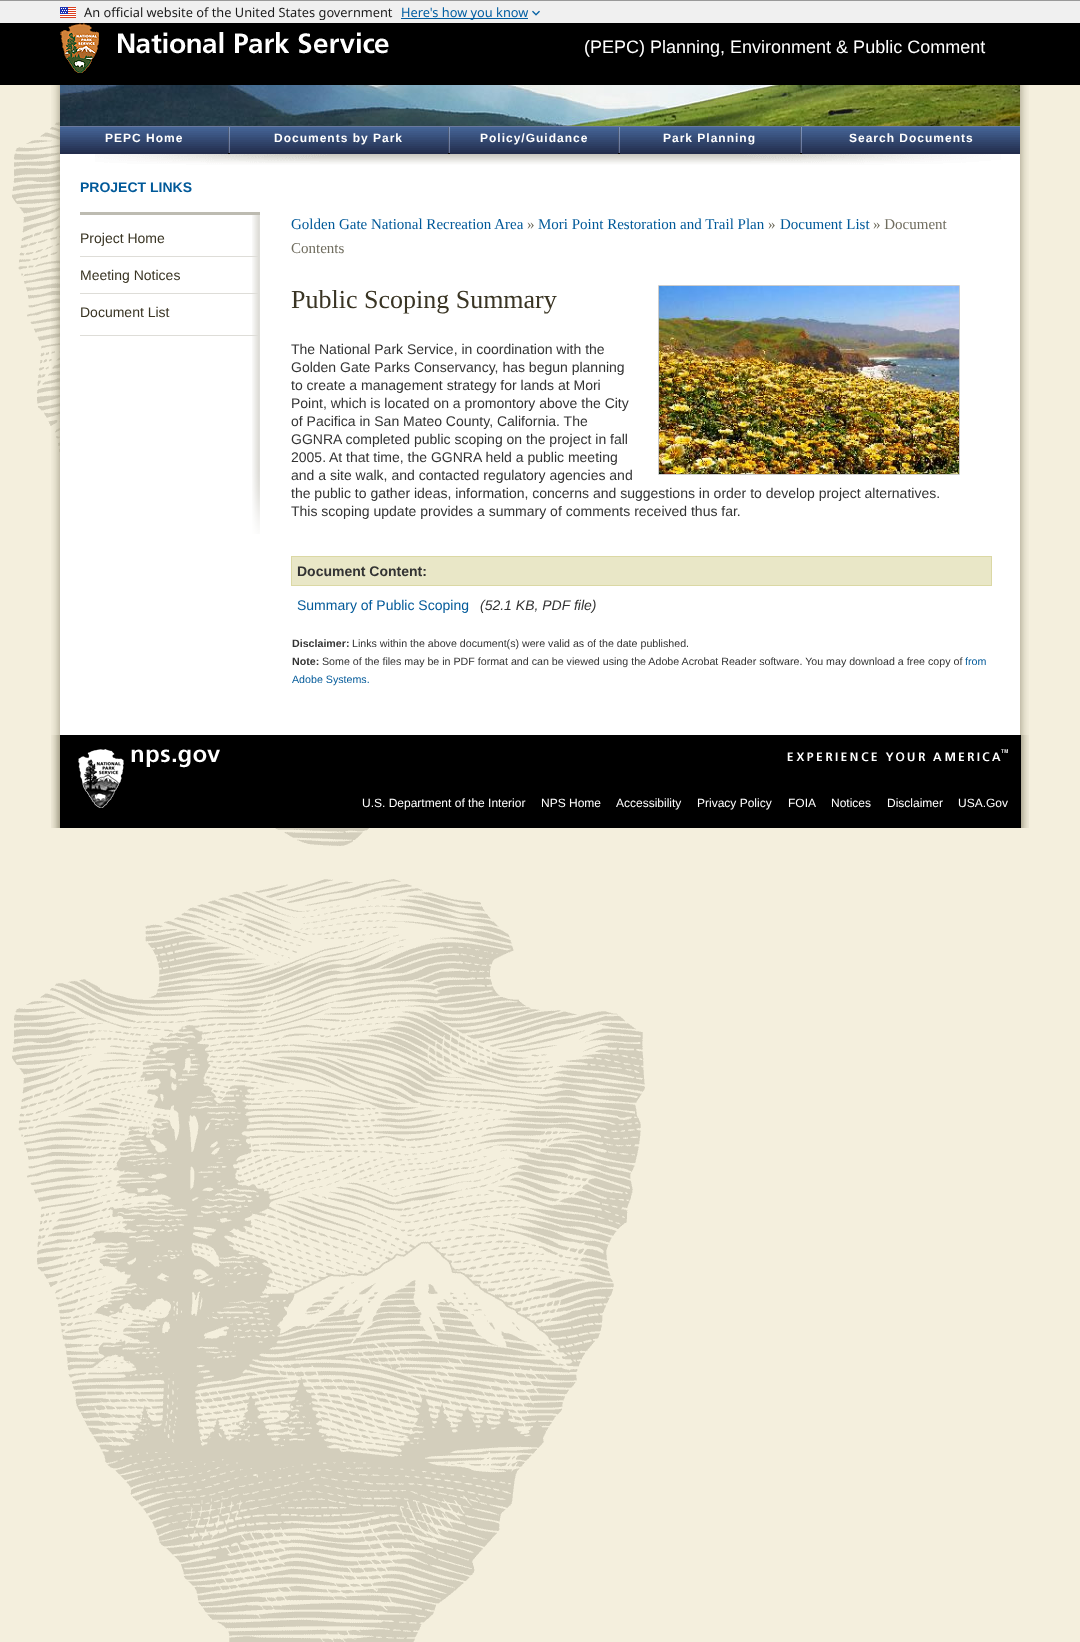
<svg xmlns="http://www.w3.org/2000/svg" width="1080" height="1642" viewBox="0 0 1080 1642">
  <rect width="100%" height="100%" fill="#f4efdd"/>
  <image x="12" y="85" width="633" height="1557" href="img/1.png"/>
  <path d="M0 0h1080v1H0z" fill="#999"/>
  <path d="M0 1h1080v22H0z" fill="#f0f0f0"/>
  <image x="60" y="7" width="16" height="11" href="img/2.png"/>
  <path d="M401 18h127v1H401z" fill="#005ea2"/>
  <image x="532" y="10" width="8" height="6" href="img/3.png"/>
  <path d="M0 23h1080v62H0z" fill="#000"/>
  <image x="60" y="23" width="329" height="50" href="img/4.png"/>
  <image x="51" y="85" width="978" height="84" href="img/5.png"/>
  <image x="60" y="85" width="960" height="41" href="img/6.png"/>
  <image x="60" y="127" width="960" height="26" href="img/7.png"/>
  <path d="M60 126h960v1H60z" fill="#6b7a9f"/>
  <path d="M228 153h574v1H228z" fill="#000"/>
  <path d="M60 153h168v1H60z" fill="#232d4c"/>
  <image x="228" y="127" width="2" height="26" href="img/8.png"/>
  <path d="M230 153h218v1H230z" fill="#232d4c"/>
  <image x="448" y="127" width="2" height="26" href="img/8.png"/>
  <path d="M450 153h168v1H450z" fill="#232d4c"/>
  <image x="618" y="127" width="2" height="26" href="img/8.png"/>
  <path d="M620 153h180v1H620z" fill="#232d4c"/>
  <image x="800" y="127" width="2" height="26" href="img/8.png"/>
  <path d="M802 153h218v1H802z" fill="#232d4c"/>
  <image x="60" y="154" width="960" height="15" href="img/9.png"/>
  <image x="51" y="169" width="978" height="659" href="img/10.png"/>
  <path d="M60 169h960v566H60z" fill="#fff"/>
  <path d="M80 212h180v3H80z" fill="#bdbbb1"/>
  <image x="252" y="215" width="8" height="319" href="img/11.png"/>
  <path d="M80 335h180v1H80z" fill="#deddd8"/>
  <path d="M80 256h180v1H80z" fill="#deddd8"/>
  <path d="M80 293h180v1H80z" fill="#deddd8"/>
  <path d="M658.5 285.5h301v189H658.5z" fill="none" stroke="#ccc"/>
  <image x="659" y="286" width="300" height="188" href="img/12.png"/>
  <path d="M292 557h699v28H292z" fill="#e9e7c7"/>
  <path d="M291 556h701v1H291z" fill="#dbd8a4"/>
  <path d="M991 556h1v30H991z" fill="#dbd8a4"/>
  <path d="M291 585h701v1H291z" fill="#dbd8a4"/>
  <path d="M291 556h1v30H291z" fill="#dbd8a4"/>
  <image x="51" y="735" width="978" height="93" href="img/13.png"/>
  <path d="M60 735h961v93H60z" fill="#000"/>
  <image x="78" y="749" width="46" height="59" href="img/14.png"/>
  <image x="131" y="749" width="89" height="19" href="img/15.png"/>
  <image x="787" y="749" width="221" height="13" href="img/16.png"/>
  <text x="84" y="17" font-family="Noto Sans" font-size="12.8" fill="#1b1b1b">An official website of the United States government</text>
  <text x="401" y="17" font-family="Noto Sans" font-size="12.8" fill="#005ea2">Here's how you know</text>
  <text x="584" y="53" font-family="Liberation Sans" font-size="18" fill="#fff">(PEPC) Planning, Environment &amp; Public Comment</text>
  <g font-family="Liberation Sans" font-size="12" font-weight="bold" letter-spacing="1" fill="#fff">
    <text x="105" y="142">PEPC Home</text>
    <text x="274" y="142">Documents by Park</text>
    <text x="480" y="142">Policy/Guidance</text>
    <text x="663" y="142">Park Planning</text>
    <text x="849" y="142">Search Documents</text>
  </g>
  <text x="80" y="192" font-family="Liberation Sans" font-size="14" font-weight="bold" fill="#005999">PROJECT LINKS</text>
  <g font-family="Liberation Sans" font-size="14" fill="#393423">
    <text x="80" y="243">Project Home</text>
    <text x="80" y="280">Meeting Notices</text>
    <text x="80" y="317">Document List</text>
  </g>
  <text x="291" y="229" font-family="Liberation Serif" font-size="15" fill="#005999">Golden Gate National Recreation Area</text>
  <text x="527" y="229" font-family="Liberation Serif" font-size="15" fill="#706d5f">»</text>
  <text x="538" y="229" font-family="Liberation Serif" font-size="15" fill="#005999">Mori Point Restoration and Trail Plan</text>
  <text x="768" y="229" font-family="Liberation Serif" font-size="15" fill="#706d5f">»</text>
  <text x="780" y="229" font-family="Liberation Serif" font-size="15" fill="#005999">Document List</text>
  <g font-family="Liberation Serif" font-size="15" fill="#706d5f">
    <text x="873" y="229">» Document</text>
    <text x="291" y="253">Contents</text>
  </g>
  <text x="291" y="308" font-family="Liberation Serif" font-size="26" fill="#393423">Public Scoping Summary</text>
  <g font-family="Liberation Sans" font-size="14" fill="#333">
    <text x="291" y="354">The National Park Service, in coordination with the</text>
    <text x="291" y="372">Golden Gate Parks Conservancy, has begun planning</text>
    <text x="291" y="390">to create a management strategy for lands at Mori</text>
    <text x="291" y="408">Point, which is located on a promontory above the City</text>
    <text x="291" y="426">of Pacifica in San Mateo County, California. The</text>
    <text x="291" y="444">GGNRA completed public scoping on the project in fall</text>
    <text x="291" y="462">2005.</text>
    <text x="329" y="462">At that time, the GGNRA held a public meeting</text>
    <text x="291" y="480">and a site walk, and contacted regulatory agencies and</text>
    <text x="291" y="498">the public to gather ideas, information, concerns and suggestions in order to develop project alternatives.</text>
    <text x="291" y="516">This scoping update provides a summary of comments received thus far.</text>
  </g>
  <text x="297" y="576" font-family="Liberation Sans" font-size="14" font-weight="bold" fill="#333">Document Content:</text>
  <text x="297" y="610" font-family="Liberation Sans" font-size="14" fill="#005999">Summary of Public Scoping</text>
  <text x="480" y="610" font-family="Liberation Sans" font-size="14" font-style="italic" fill="#333">(52.1 KB, PDF file)</text>
  <text x="292" y="647" font-family="Liberation Sans" font-size="10.67" font-weight="bold" fill="#333">Disclaimer:</text>
  <text x="352" y="647" font-family="Liberation Sans" font-size="10.67" fill="#333">Links within the above document(s) were valid as of the date published.</text>
  <text x="292" y="665" font-family="Liberation Sans" font-size="10.67" font-weight="bold" fill="#333">Note:</text>
  <text x="322" y="665" font-family="Liberation Sans" font-size="10.67" fill="#333">Some of the files may be in PDF format and can be viewed using the Adobe Acrobat Reader software. You may download a free copy of</text>
  <g font-family="Liberation Sans" font-size="10.67" fill="#005999">
    <text x="965" y="665">from</text>
    <text x="292" y="683">Adobe Systems.</text>
  </g>
  <g font-family="Liberation Sans" font-size="12" fill="#fff">
    <text x="362" y="807">U.S. Department of the Interior</text>
    <text x="541" y="807">NPS Home</text>
    <text x="616" y="807">Accessibility</text>
    <text x="697" y="807">Privacy Policy</text>
    <text x="788" y="807">FOIA</text>
    <text x="831" y="807">Notices</text>
    <text x="887" y="807">Disclaimer</text>
    <text x="958" y="807">USA.Gov</text>
  </g>
</svg>
